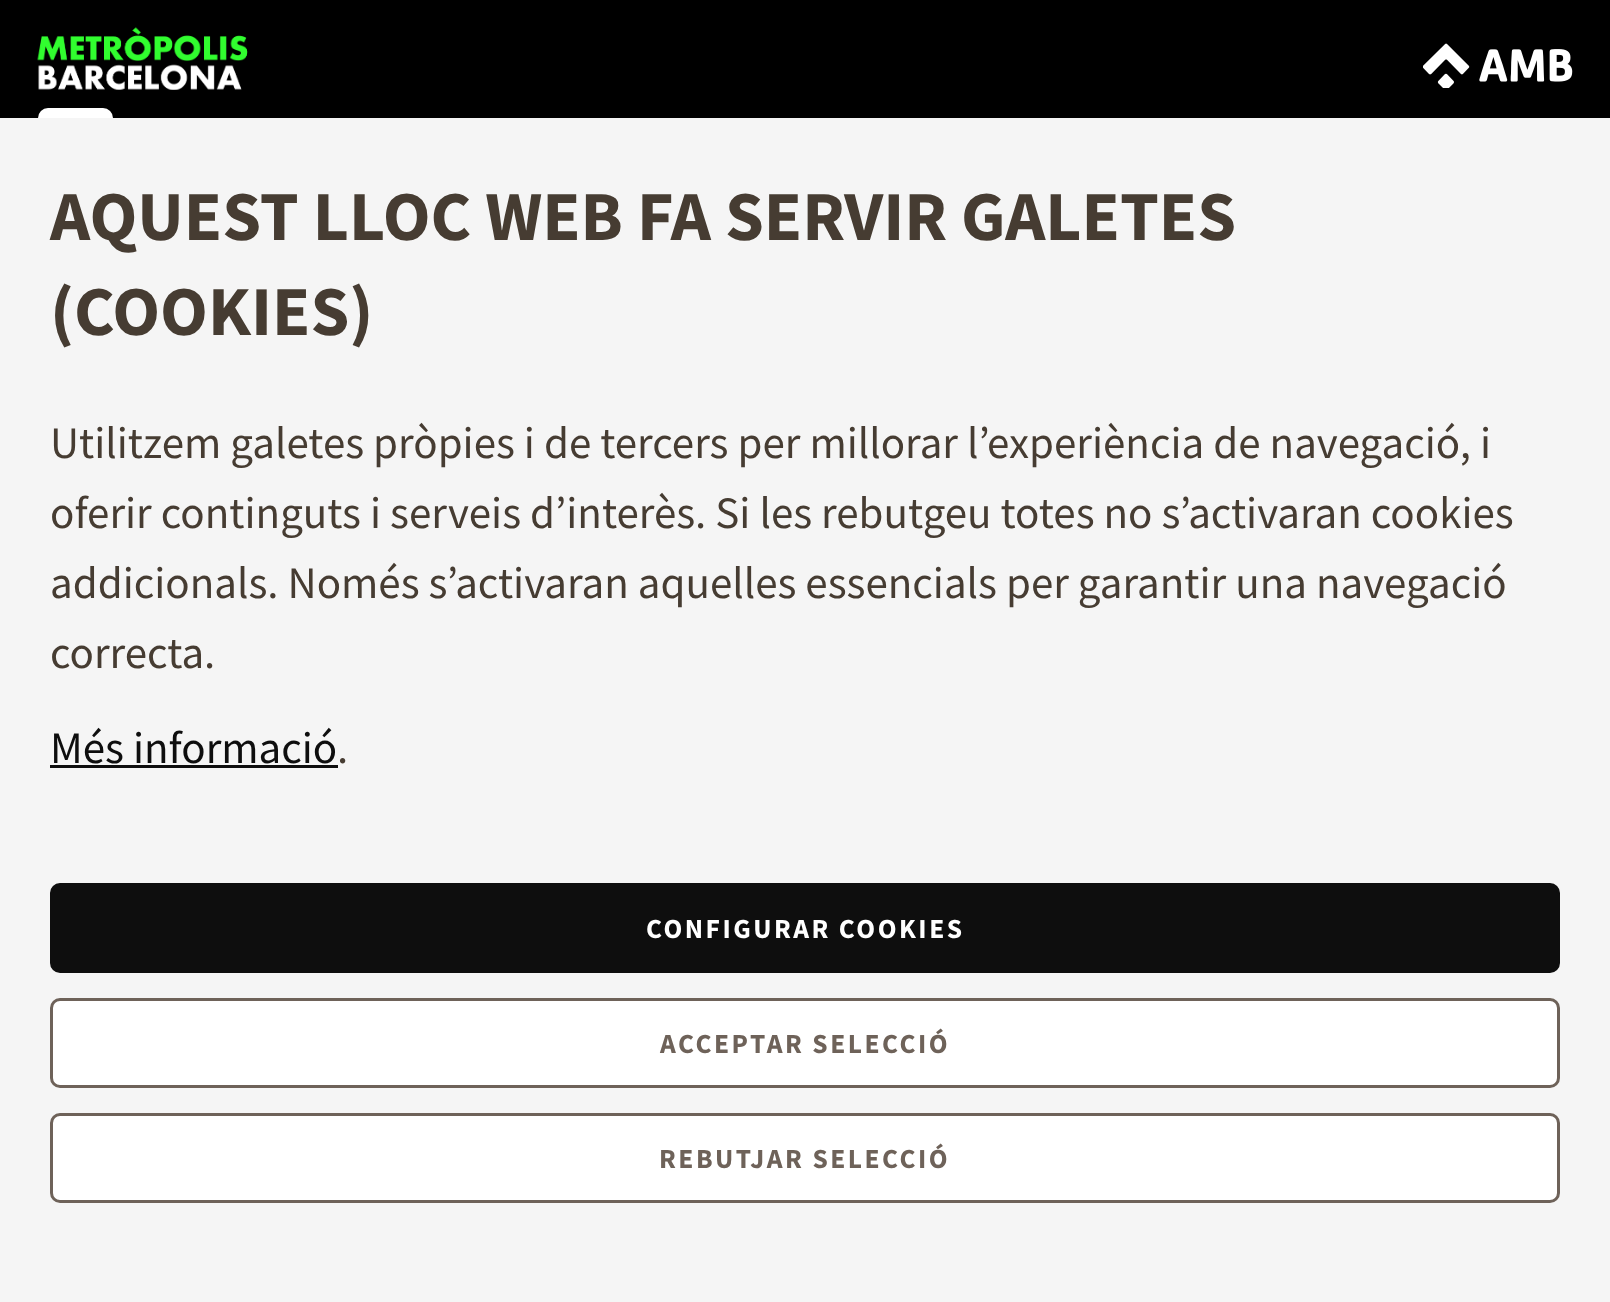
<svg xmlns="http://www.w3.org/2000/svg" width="1610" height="1302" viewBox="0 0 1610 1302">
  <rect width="100%" height="100%" fill="#000"/>
  <image x="37" y="27" width="211" height="63" href="img/1.png"/>
  <rect x="38" y="108" width="75" height="75" rx="10" fill="#fff"/>
  <image x="1423" y="43" width="150" height="45" href="img/2.png"/>
  <path d="M0 118h1610v1184H0z" fill="#f5f5f5"/>
  <path d="M50 765h288v3H50z" fill="#0e0e0e"/>
  <rect x="51.5" y="884.5" width="1507" height="87" rx="8.5" fill="#0e0e0e" stroke="#0e0e0e" stroke-width="3"/>
  <rect x="51.5" y="999.5" width="1507" height="87" rx="8.5" fill="#fff" stroke="#6e6259" stroke-width="3"/>
  <rect x="51.5" y="1114.5" width="1507" height="87" rx="8.5" fill="#fff" stroke="#6e6259" stroke-width="3"/>
  <g font-family="Source Sans Pro" font-size="70" font-weight="bold" fill="#463c32">
    <text x="50" y="240">AQUEST LLOC WEB FA SERVIR GALETES</text>
    <text x="50" y="335">(COOKIES)</text>
  </g>
  <g font-family="Source Sans Pro" font-size="45" fill="#463c32">
    <text x="50" y="458">Utilitzem galetes pròpies i de tercers per millorar l’experiència de navegació, i</text>
    <text x="50" y="528">oferir continguts i serveis d’interès. Si les rebutgeu totes no s’activaran cookies</text>
    <text x="50" y="598">addicionals. Només s’activaran aquelles essencials per garantir una navegació</text>
    <text x="50" y="668">correcta.</text>
  </g>
  <text x="50" y="763" font-family="Source Sans Pro" font-size="45" fill="#0e0e0e">Més informació</text>
  <text x="337" y="763" font-family="Source Sans Pro" font-size="45" fill="#463c32">.</text>
  <text x="646" y="938" font-family="Source Sans Pro" font-size="27.5" font-weight="bold" letter-spacing="2.5" fill="#fff">CONFIGURAR COOKIES</text>
  <g font-family="Source Sans Pro" font-size="27.5" font-weight="bold" letter-spacing="2.5" fill="#6e6259">
    <text x="660" y="1053">ACCEPTAR SELECCIÓ</text>
    <text x="659" y="1168">REBUTJAR SELECCIÓ</text>
  </g>
</svg>
